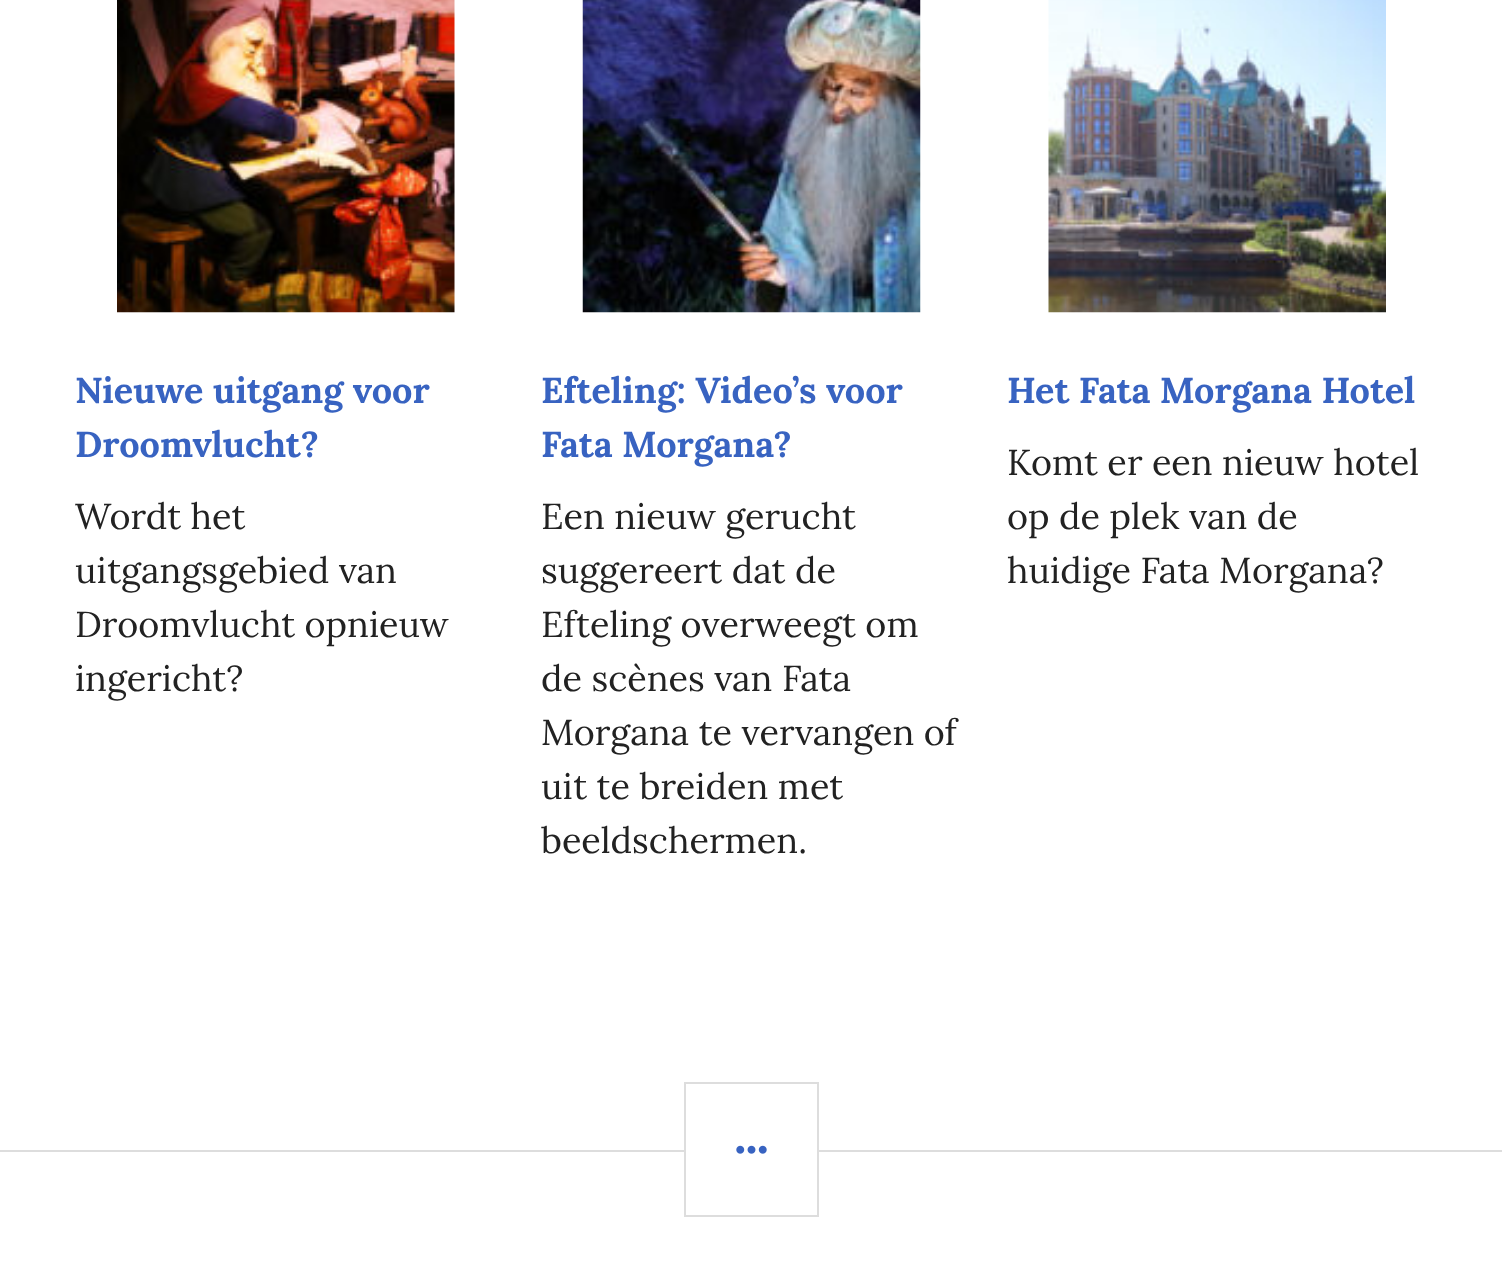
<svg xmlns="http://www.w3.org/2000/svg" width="1502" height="1287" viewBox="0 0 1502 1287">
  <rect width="100%" height="100%" fill="#fff"/>
  <image x="117" y="0" width="338" height="313" href="img/1.png"/>
  <image x="582" y="0" width="339" height="313" href="img/2.png"/>
  <image x="1048" y="0" width="338" height="313" href="img/3.png"/>
  <path d="M0 1150h1502v2H0z" fill="#ddd"/>
  <path d="M686 1150h131v2H686z" fill="#fff"/>
  <path d="M685 1083h133v133H685z" fill="none" stroke="#ddd" stroke-width="2"/>
  <image x="736" y="1145" width="31" height="9" href="img/4.png"/>
  <g font-family="Lora" font-size="36" font-weight="bold" fill="#3863c1">
    <text x="75" y="403">Nieuwe uitgang voor</text>
    <text x="75" y="457">Droomvlucht?</text>
  </g>
  <g font-family="Lora" font-size="36" fill="#222">
    <text x="75" y="529">Wordt het</text>
    <text x="75" y="583">uitgangsgebied van</text>
    <text x="75" y="637">Droomvlucht opnieuw</text>
    <text x="75" y="691">ingericht?</text>
  </g>
  <g font-family="Lora" font-size="36" font-weight="bold" fill="#3863c1">
    <text x="541" y="403">Efteling: Video’s voor</text>
    <text x="541" y="457">Fata Morgana?</text>
  </g>
  <g font-family="Lora" font-size="36" fill="#222">
    <text x="541" y="529">Een nieuw gerucht</text>
    <text x="541" y="583">suggereert dat de</text>
    <text x="541" y="637">Efteling overweegt om</text>
    <text x="541" y="691">de scènes van Fata</text>
    <text x="541" y="745">Morgana te vervangen of</text>
    <text x="541" y="799">uit te breiden met</text>
    <text x="541" y="853">beeldschermen.</text>
  </g>
  <text x="1007" y="403" font-family="Lora" font-size="36" font-weight="bold" fill="#3863c1">Het Fata Morgana Hotel</text>
  <g font-family="Lora" font-size="36" fill="#222">
    <text x="1007" y="475">Komt er een nieuw hotel</text>
    <text x="1007" y="529">op de plek van de</text>
    <text x="1007" y="583">huidige Fata Morgana?</text>
  </g>
</svg>
